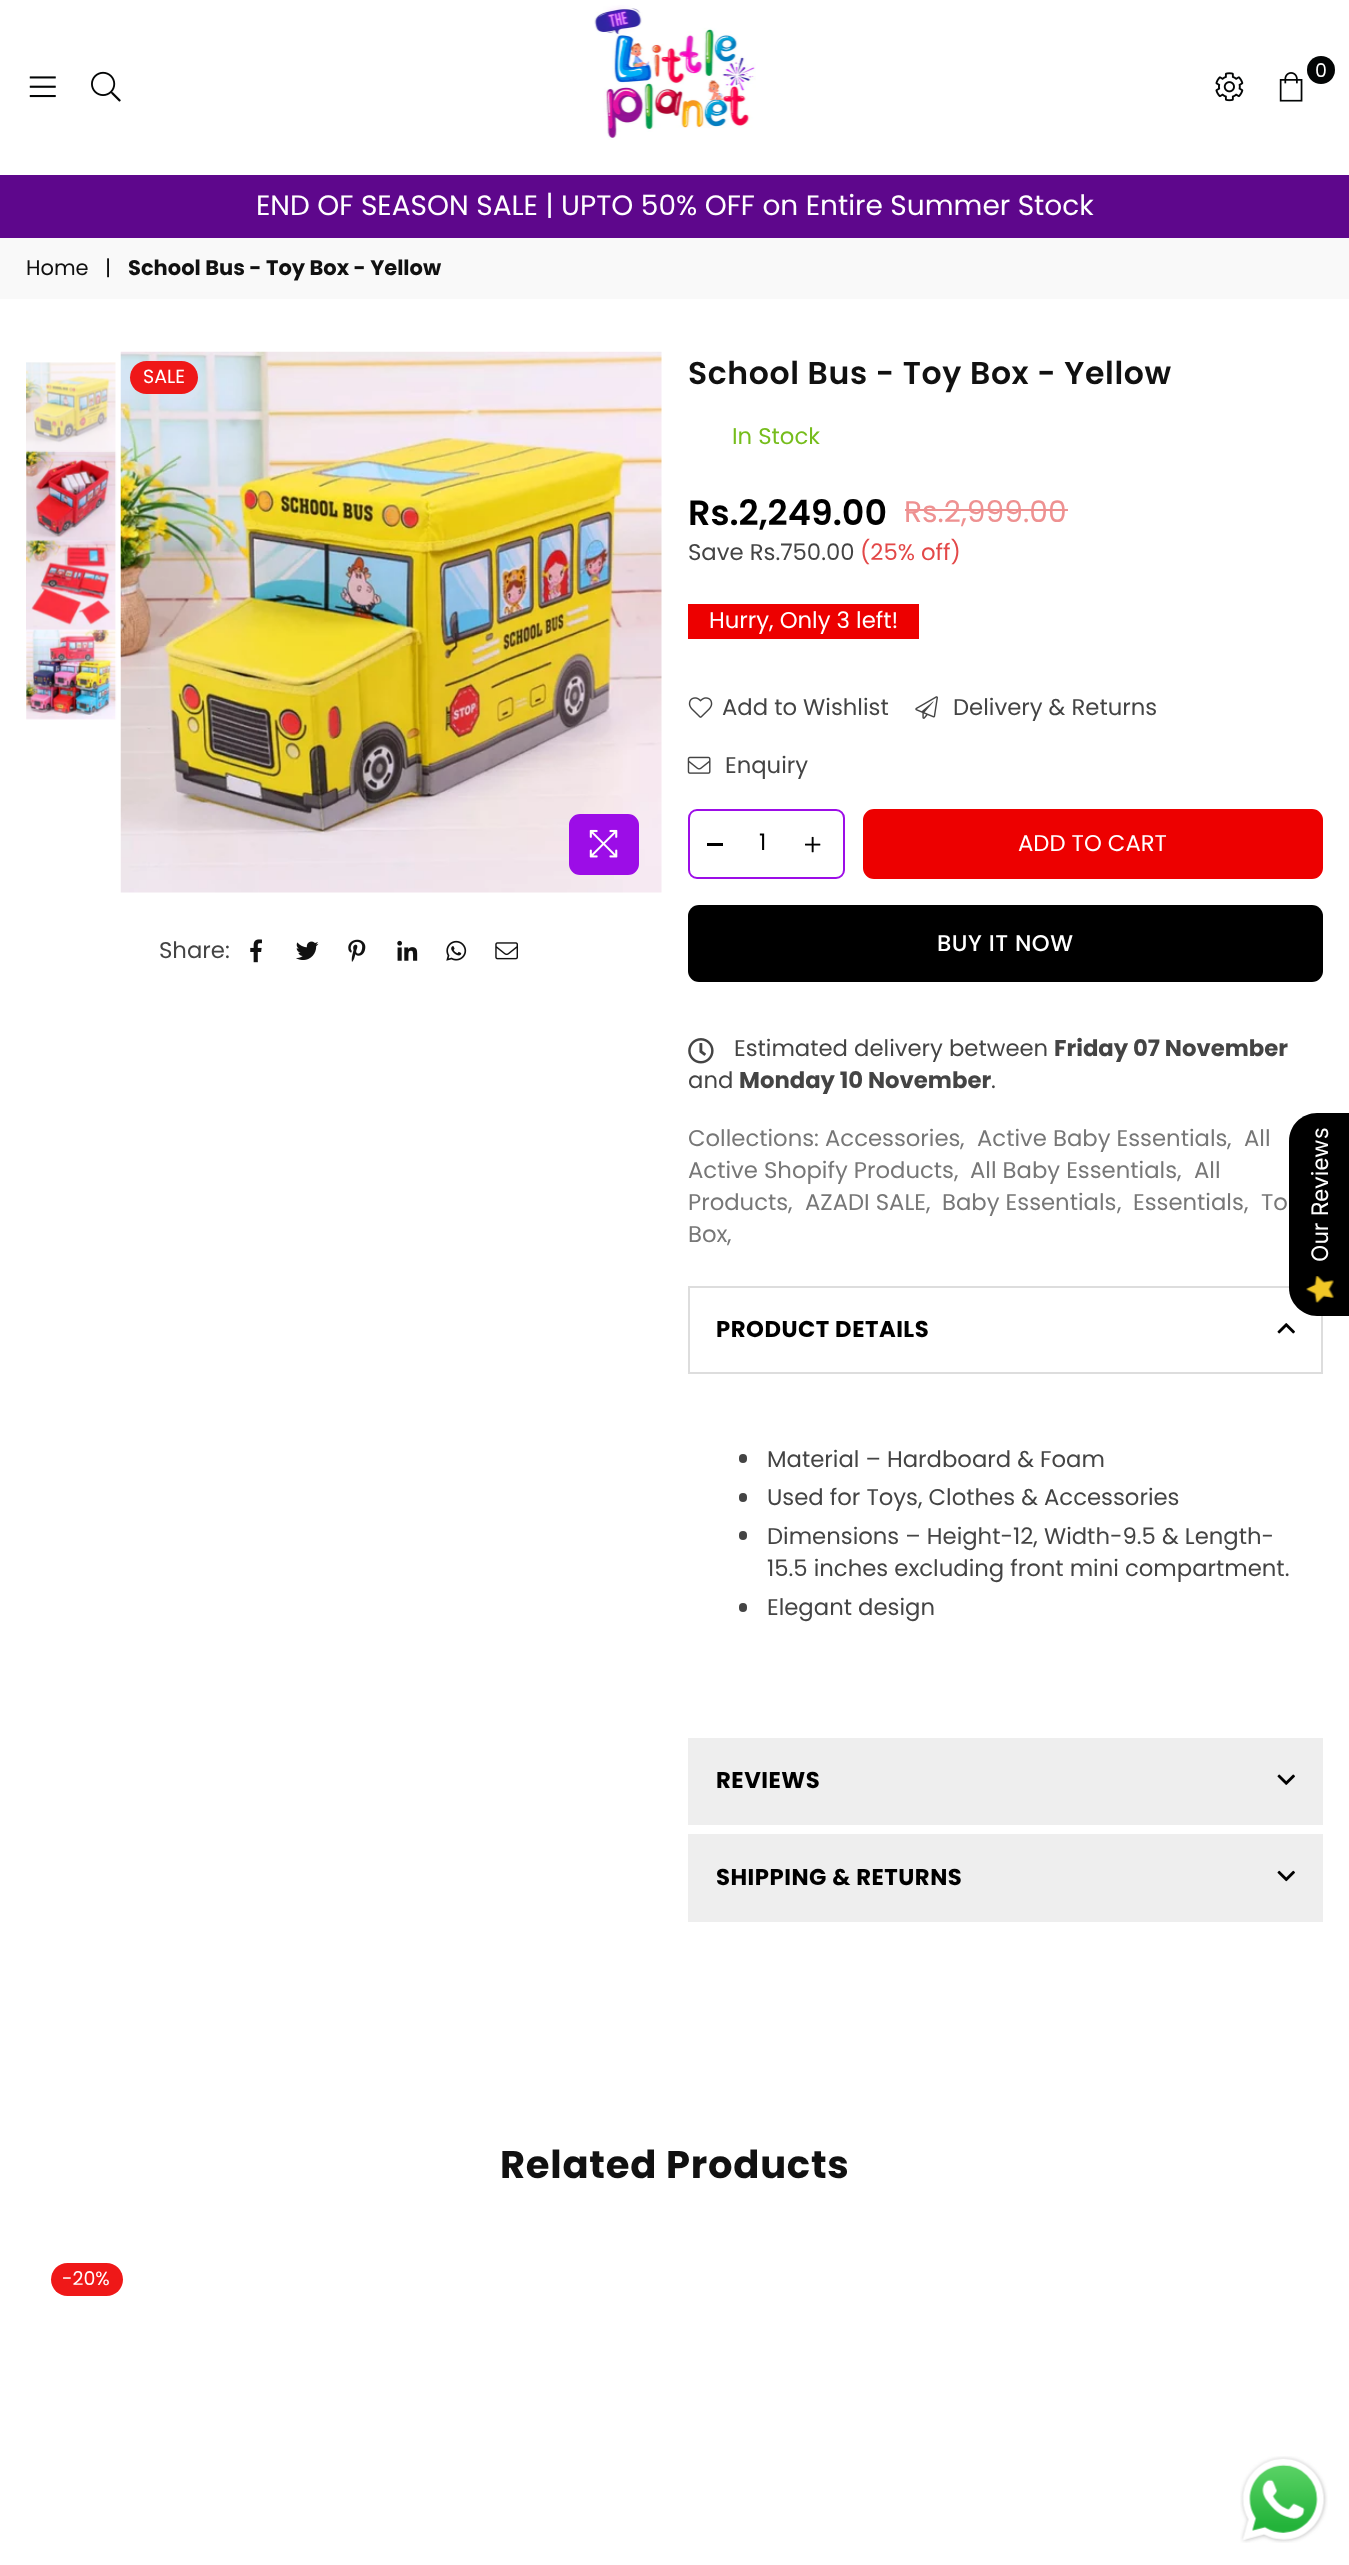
<svg xmlns="http://www.w3.org/2000/svg" width="1349" height="2565" viewBox="0 0 1349 2565">
  <rect width="100%" height="100%" fill="#fff"/>
  <image x="594" y="5" width="162" height="135" href="img/1.png"/>
  <circle cx="1321" cy="70" r="14" fill="#030505"/>
  <image x="1279" y="72" width="24" height="30" href="img/2.png"/>
  <image x="1215" y="72" width="29" height="30" href="img/3.png"/>
  <image x="29" y="76" width="27" height="22" href="img/4.png"/>
  <image x="91" y="71" width="30" height="31" href="img/5.png"/>
  <path d="M0 175h1349v63H0z" fill="#5e078c"/>
  <path d="M0 238h1349v61H0z" fill="#f9f9f9"/>
  <image x="26" y="362" width="90" height="90" href="img/6.png"/>
  <image x="26" y="450" width="91" height="91" href="img/7.png"/>
  <image x="26" y="540" width="90" height="91" href="img/8.png"/>
  <image x="26" y="629" width="91" height="91" href="img/9.png"/>
  <image x="120" y="351" width="542" height="542" href="img/10.png"/>
  <rect x="130" y="361" width="68" height="33" rx="16.5" fill="#ef1818"/>
  <rect x="571" y="816" width="66" height="57" rx="9" fill="#9c0de7" stroke="#9c0de7" stroke-width="4"/>
  <image x="589" y="829" width="29" height="29" href="img/11.png"/>
  <image x="250" y="939" width="12" height="24" href="img/12.png"/>
  <image x="296" y="941" width="23" height="19" href="img/13.png"/>
  <image x="348" y="939" width="18" height="23" href="img/14.png"/>
  <image x="397" y="940" width="21" height="21" href="img/15.png"/>
  <image x="446" y="940" width="21" height="21" href="img/16.png"/>
  <image x="495" y="942" width="23" height="18" href="img/17.png"/>
  <path d="M905 509h163v2H905z" fill="#ee9191"/>
  <path d="M688 604h231v35H688z" fill="#ed0000"/>
  <image x="688" y="697" width="25" height="21" href="img/18.png"/>
  <image x="915" y="696" width="23" height="23" href="img/19.png"/>
  <image x="687" y="756" width="24" height="18" href="img/20.png"/>
  <rect x="689" y="810" width="155" height="68" rx="8" fill="none" stroke="#9c0de7" stroke-width="2"/>
  <path d="M707 843h16v3H707z" fill="#000"/>
  <image x="805" y="836" width="16" height="17" href="img/21.png"/>
  <rect x="864" y="810" width="458" height="68" rx="10" fill="#ed0000" stroke="#ed0000" stroke-width="2"/>
  <rect x="688" y="905" width="635" height="77" rx="11" fill="#000"/>
  <image x="688" y="1038" width="26" height="26" href="img/22.png"/>
  <path d="M689 1287h633v86H689z" fill="none" stroke="#ddd" stroke-width="2"/>
  <image x="1277" y="1323" width="18" height="11" href="img/23.png"/>
  <rect x="739" y="1454" width="8" height="9" rx="4" fill="#444"/>
  <rect x="739" y="1493" width="8" height="9" rx="4" fill="#444"/>
  <rect x="739" y="1531" width="8" height="9" rx="4" fill="#444"/>
  <rect x="739" y="1603" width="8" height="9" rx="4" fill="#444"/>
  <path d="M688 1738h635v87H688z" fill="#eee"/>
  <image x="1277" y="1774" width="18" height="11" href="img/24.png"/>
  <path d="M688 1834h635v88H688z" fill="#eee"/>
  <image x="1277" y="1870" width="18" height="12" href="img/25.png"/>
  <rect x="51" y="2263" width="72" height="33" rx="16.5" fill="#ef1818"/>
  <path d="M1289 1288V1141C1289 1125 1302 1113 1317 1113H1349V1316H1317C1302 1316 1289 1303 1289 1288Z" fill="#000"/>
  <image x="1306" y="1276" width="28" height="27" href="img/26.png"/>
  <image x="1240" y="2456" width="88" height="87" href="img/27.png"/>
  <text x="1315" y="77" font-family="Poppins" font-size="19" fill="#fff">0</text>
  <text x="256" y="215" font-family="Poppins" font-size="28" fill="#fff">END OF SEASON SALE | UPTO 50% OFF on Entire Summer Stock</text>
  <g font-family="Poppins" font-size="21" fill="#111">
    <text x="26" y="275">Home</text>
    <text x="105" y="275">|</text>
  </g>
  <text x="128" y="275" font-family="Poppins" font-size="21" font-weight="bold" fill="#111">School Bus - Toy Box - Yellow</text>
  <text x="143" y="383" font-family="Poppins" font-size="19" fill="#fff">SALE</text>
  <text x="159" y="958" font-family="Poppins" font-size="22.75" fill="#444">Share:</text>
  <text x="688" y="384" font-family="Poppins" font-size="31.5" font-weight="600" letter-spacing="0.6" fill="#111">School Bus - Toy Box - Yellow</text>
  <text x="732" y="444" font-family="Poppins" font-size="22.75" fill="#76bd1c">In Stock</text>
  <text x="688" y="525" font-family="Poppins" font-size="35" font-weight="600" fill="#000">Rs.2,249.00</text>
  <text x="904" y="522" font-family="Poppins" font-size="29.75" fill="#ee9191">Rs.2,999.00</text>
  <text x="688" y="560" font-family="Poppins" font-size="22.75" fill="#444">Save Rs.750.00</text>
  <text x="860" y="560" font-family="Poppins" font-size="22.75" fill="#e34848">(25% off)</text>
  <text x="709" y="628" font-family="Poppins" font-size="22.75" fill="#fff">Hurry, Only 3 left!</text>
  <g font-family="Poppins" font-size="22.75" fill="#444">
    <text x="722" y="715">Add to Wishlist</text>
    <text x="953" y="715">Delivery &amp; Returns</text>
    <text x="725" y="773">Enquiry</text>
  </g>
  <text x="759" y="850" font-family="Poppins" font-size="22.75" fill="#000">1</text>
  <text x="1018" y="851" font-family="Poppins" font-size="22.75" fill="#fff">ADD TO CART</text>
  <text x="937" y="951" font-family="Poppins" font-size="22.75" font-weight="500" letter-spacing="0.5" fill="#fff">BUY IT NOW</text>
  <text x="734" y="1056" font-family="Poppins" font-size="22.75" fill="#444">Estimated delivery between</text>
  <text x="1054" y="1056" font-family="Poppins" font-size="22.75" font-weight="bold" fill="#444">Friday 07 November</text>
  <text x="688" y="1088" font-family="Poppins" font-size="22.75" fill="#444">and</text>
  <text x="739" y="1088" font-family="Poppins" font-size="22.75" font-weight="bold" fill="#444">Monday 10 November</text>
  <text x="991" y="1088" font-family="Poppins" font-size="22.75" fill="#444">.</text>
  <g font-family="Poppins" font-size="22.75" fill="#777">
    <text x="688" y="1146">Collections:</text>
    <text x="825" y="1146">Accessories</text>
    <text x="960" y="1146">,</text>
    <text x="977" y="1146">Active Baby Essentials</text>
    <text x="1227" y="1146">,</text>
    <text x="1244" y="1146">All</text>
    <text x="688" y="1178">Active Shopify Products</text>
    <text x="954" y="1178">,</text>
    <text x="970" y="1178">All Baby Essentials</text>
    <text x="1177" y="1178">,</text>
    <text x="1194" y="1178">All</text>
    <text x="688" y="1210">Products</text>
    <text x="788" y="1210">,</text>
    <text x="805" y="1210">AZADI SALE</text>
    <text x="926" y="1210">,</text>
    <text x="942" y="1210">Baby Essentials</text>
    <text x="1117" y="1210">,</text>
    <text x="1133" y="1210">Essentials</text>
    <text x="1244" y="1210">,</text>
    <text x="1261" y="1210">To</text>
    <text x="688" y="1242">Box</text>
    <text x="727" y="1242">,</text>
  </g>
  <text x="716" y="1337" font-family="Poppins" font-size="22.75" font-weight="bold" letter-spacing="0.5" fill="#000">PRODUCT DETAILS</text>
  <g font-family="Poppins" font-size="22.75" fill="#444">
    <text x="767" y="1467">Material – Hardboard &amp; Foam</text>
    <text x="767" y="1505">Used for Toys, Clothes &amp; Accessories</text>
    <text x="767" y="1544">Dimensions – Height-12, Width-9.5 &amp; Length-</text>
    <text x="767" y="1576">15.5 inches excluding front mini compartment.</text>
    <text x="767" y="1615">Elegant design</text>
  </g>
  <g font-family="Poppins" font-size="22.75" font-weight="bold" letter-spacing="0.5" fill="#000">
    <text x="716" y="1788">REVIEWS</text>
    <text x="716" y="1885">SHIPPING &amp; RETURNS</text>
  </g>
  <text x="500" y="2178" font-family="Poppins" font-size="38.5" font-weight="bold" letter-spacing="0.75" fill="#111">Related Products</text>
  <text x="62" y="2285" font-family="Poppins" font-size="19" fill="#fff">-20%</text>
  <text x="1328" y="1262" transform="rotate(-90 1328 1262)" font-family="Inter" font-size="22.75" fill="#fff">Our Reviews</text>
</svg>
